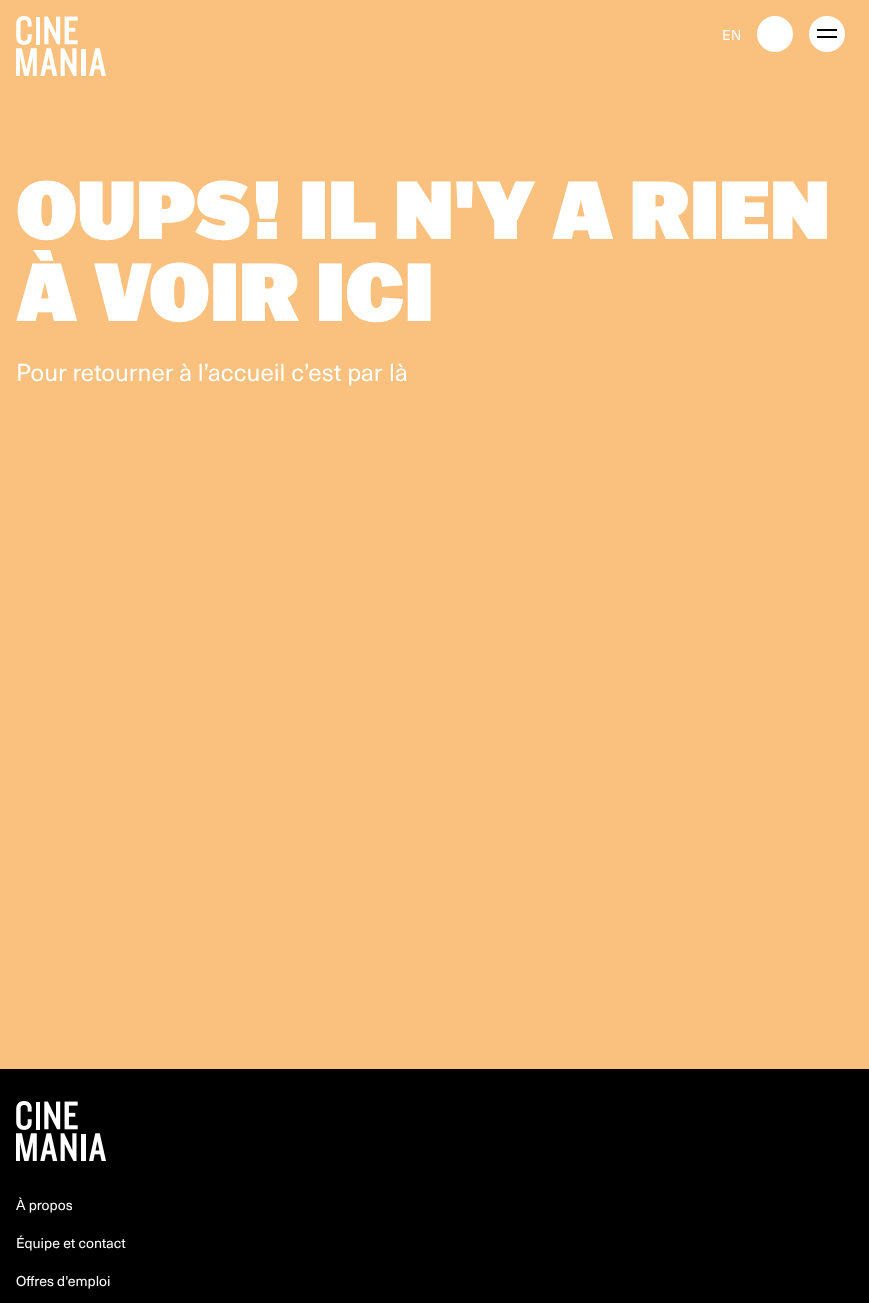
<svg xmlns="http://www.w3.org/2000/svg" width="869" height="1303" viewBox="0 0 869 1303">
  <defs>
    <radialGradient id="g1" gradientUnits="userSpaceOnUse" cx="0" cy="0" r="1" gradientTransform="matrix(108 0 0 378 865 34)"><stop offset="0.34" stop-color="#b1b1b1"/><stop offset="0.54" stop-color="#ededed"/><stop offset="0.67" stop-color="#fff"/></radialGradient>
    <radialGradient id="g2" gradientUnits="userSpaceOnUse" cx="0" cy="0" r="1" gradientTransform="matrix(108 0 0 378 917 34)"><stop offset="0.34" stop-color="#b1b1b1"/><stop offset="0.54" stop-color="#ededed"/><stop offset="0.67" stop-color="#fff"/></radialGradient>
  </defs>
  <rect width="100%" height="100%" fill="#fac07e"/>
  <image x="16" y="16" width="90" height="60" href="img/1.png"/>
  <circle cx="775" cy="34" r="18" fill="url(#g1)"/>
  <circle cx="827" cy="34" r="18" fill="url(#g2)"/>
  <image x="817" y="29" width="20" height="9" href="img/2.png"/>
  <path d="M0 1069h869v234H0z" fill="#000"/>
  <image x="16" y="1101" width="90" height="60" href="img/3.png"/>
  <text x="722" y="40" font-family="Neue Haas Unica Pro" font-size="14" fill="#fff">EN</text>
  <g font-family="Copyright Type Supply" font-size="82" font-weight="800" fill="#fff">
    <text x="16" y="239">OUPS! IL N'Y A RIEN</text>
    <text x="16" y="321">À VOIR ICI</text>
  </g>
  <g font-family="Neue Haas Unica Pro" font-size="24.1" fill="#fff">
    <text x="16" y="381" word-spacing="0.25">Pour retourner à l’accueil c’est par</text>
    <text x="389" y="381">là</text>
  </g>
  <g font-family="Neue Haas Unica Pro" font-size="14" fill="#fff">
    <text x="16" y="1210">À propos</text>
    <text x="16" y="1248">Équipe et contact</text>
    <text x="16" y="1286">Offres d'emploi</text>
  </g>
</svg>
